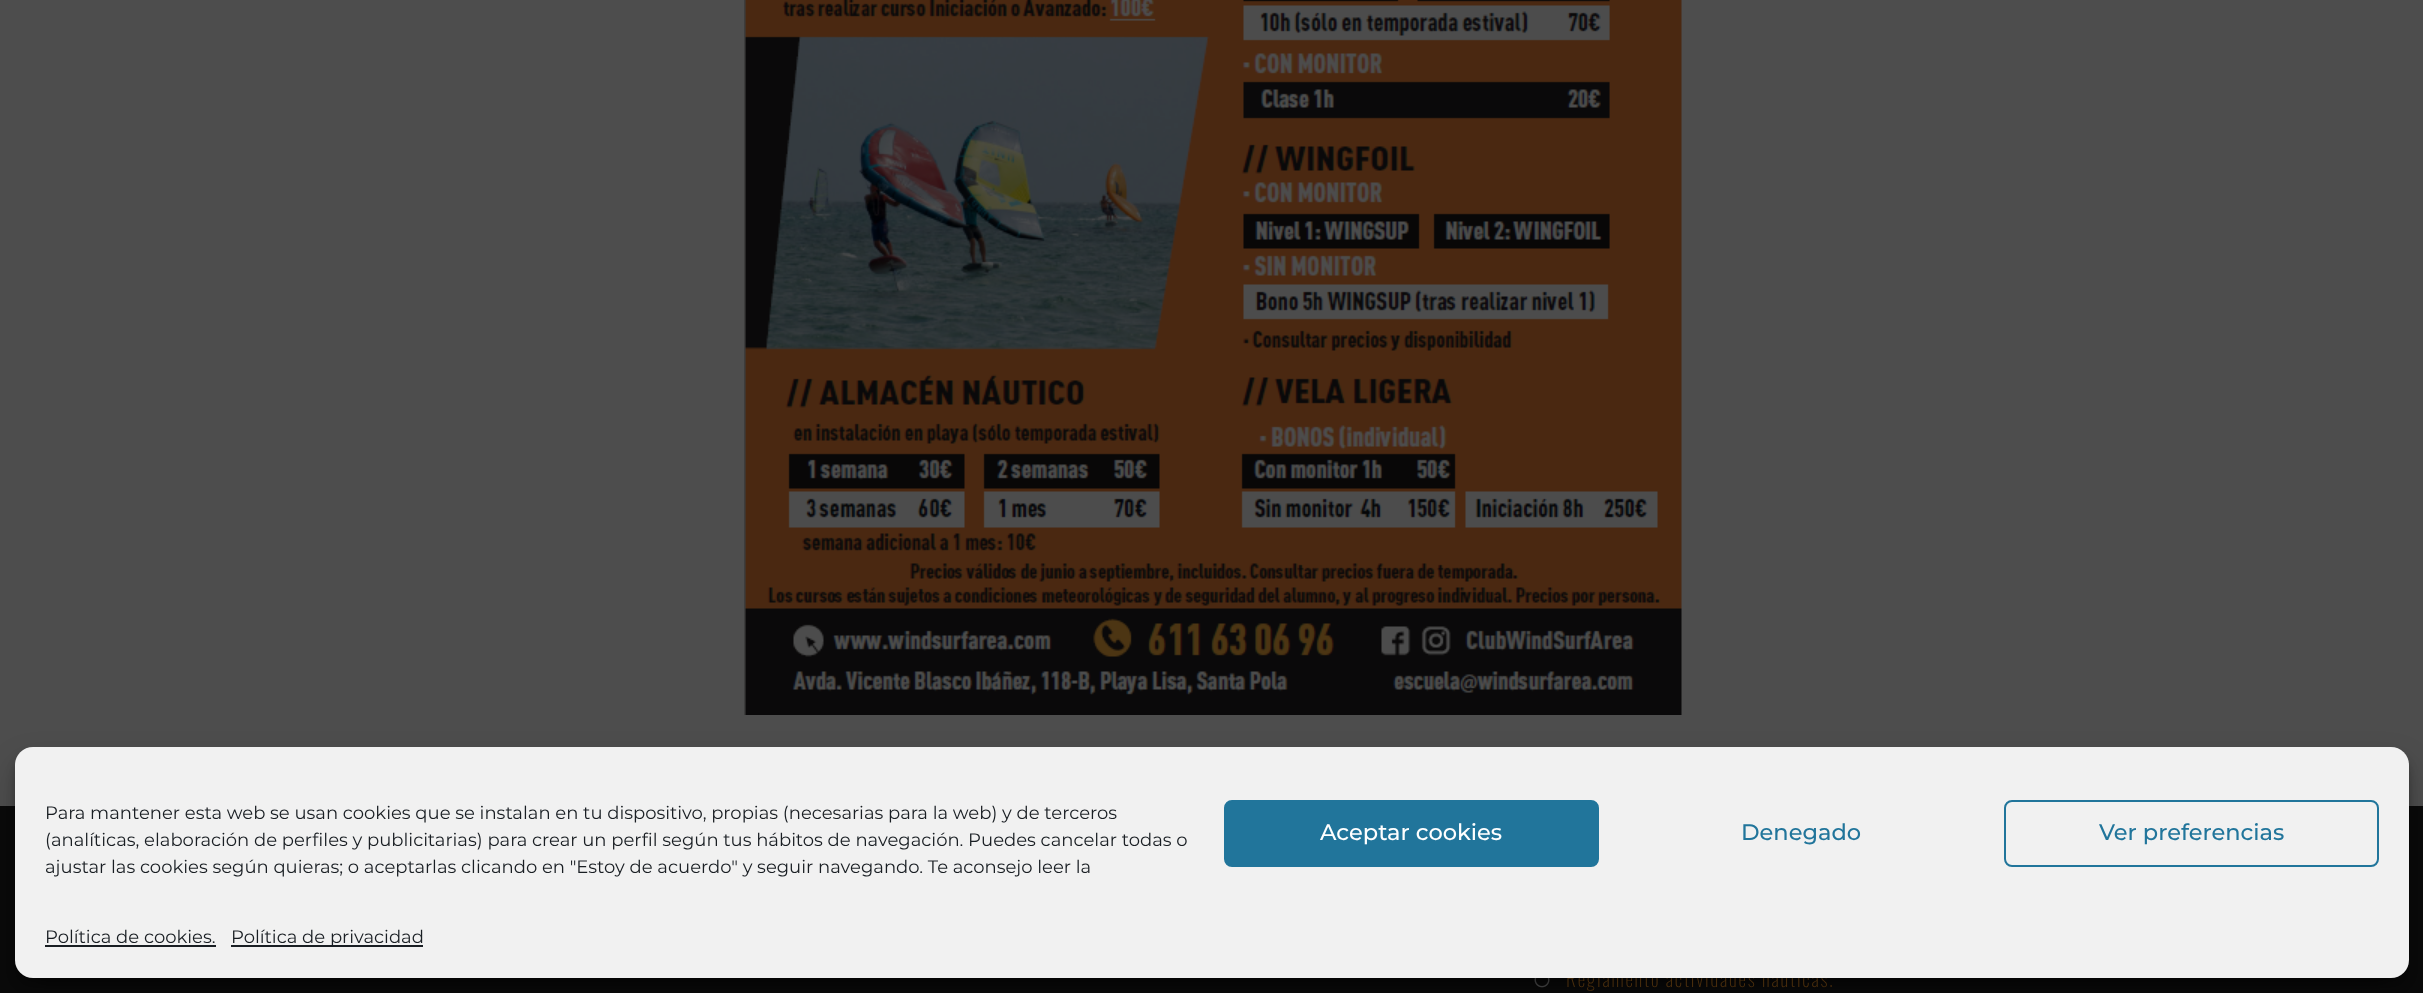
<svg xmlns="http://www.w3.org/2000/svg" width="2423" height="993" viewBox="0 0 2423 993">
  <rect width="100%" height="100%" fill="#4d4d4d"/>
  <path d="M0 806h2423v187H0z" fill="#0a0a0a"/>
  <image x="1534" y="978" width="16" height="10" href="img/2.png"/>
  <rect x="15" y="756" width="2394" height="231" rx="18" fill="#0000003b" filter="blur(4.5px)"/>
  <rect x="15" y="762" width="2394" height="231" rx="18" fill="#00000030" filter="blur(15px)"/>
  <image x="744" y="0" width="938" height="715" href="img/1.png"/>
  <text x="1566" y="987" font-family="Oswald" font-size="19.5" font-weight="200" letter-spacing="1.8" fill="#4a2e0d">Reglamento actividades náuticas.</text>
  <rect x="15" y="747" width="2394" height="231" rx="18" fill="#f1f1f1"/>
  <g font-family="Montserrat" font-size="18" fill="#191e23">
    <text x="45" y="873">ajustar las cookies según quieras; o aceptarlas clicando en "Estoy de acuerdo" y seguir navegando. Te aconsejo leer la</text>
    <text x="45" y="846">(analíticas, elaboración de perfiles y publicitarias) para crear un perfil según tus hábitos de navegación. Puedes cancelar todas o</text>
    <text x="45" y="819">Para mantener esta web se usan cookies que se instalan en tu dispositivo, propias (necesarias para la web) y de terceros</text>
  </g>
  <path d="M231 945h192v2H231z" fill="#191e23"/>
  <g font-family="Montserrat" font-size="18" fill="#191e23">
    <text x="231" y="943">Política de privacidad</text>
    <text x="45" y="943">Política de cookies.</text>
  </g>
  <path d="M45 945h171v2H45z" fill="#191e23"/>
  <rect x="2005" y="801" width="373" height="65" rx="7" fill="none" stroke="#21759b" stroke-width="2"/>
  <g font-family="Montserrat" font-size="22.5" font-weight="500" fill="#21759b">
    <text x="2099" y="840">Ver preferencias</text>
    <text x="1741" y="840">Denegado</text>
  </g>
  <rect x="1225" y="801" width="373" height="65" rx="7" fill="#21759b" stroke="#21759b" stroke-width="2"/>
  <text x="1320" y="840" font-family="Montserrat" font-size="22.5" font-weight="500" fill="#fff">Aceptar cookies</text>
</svg>
